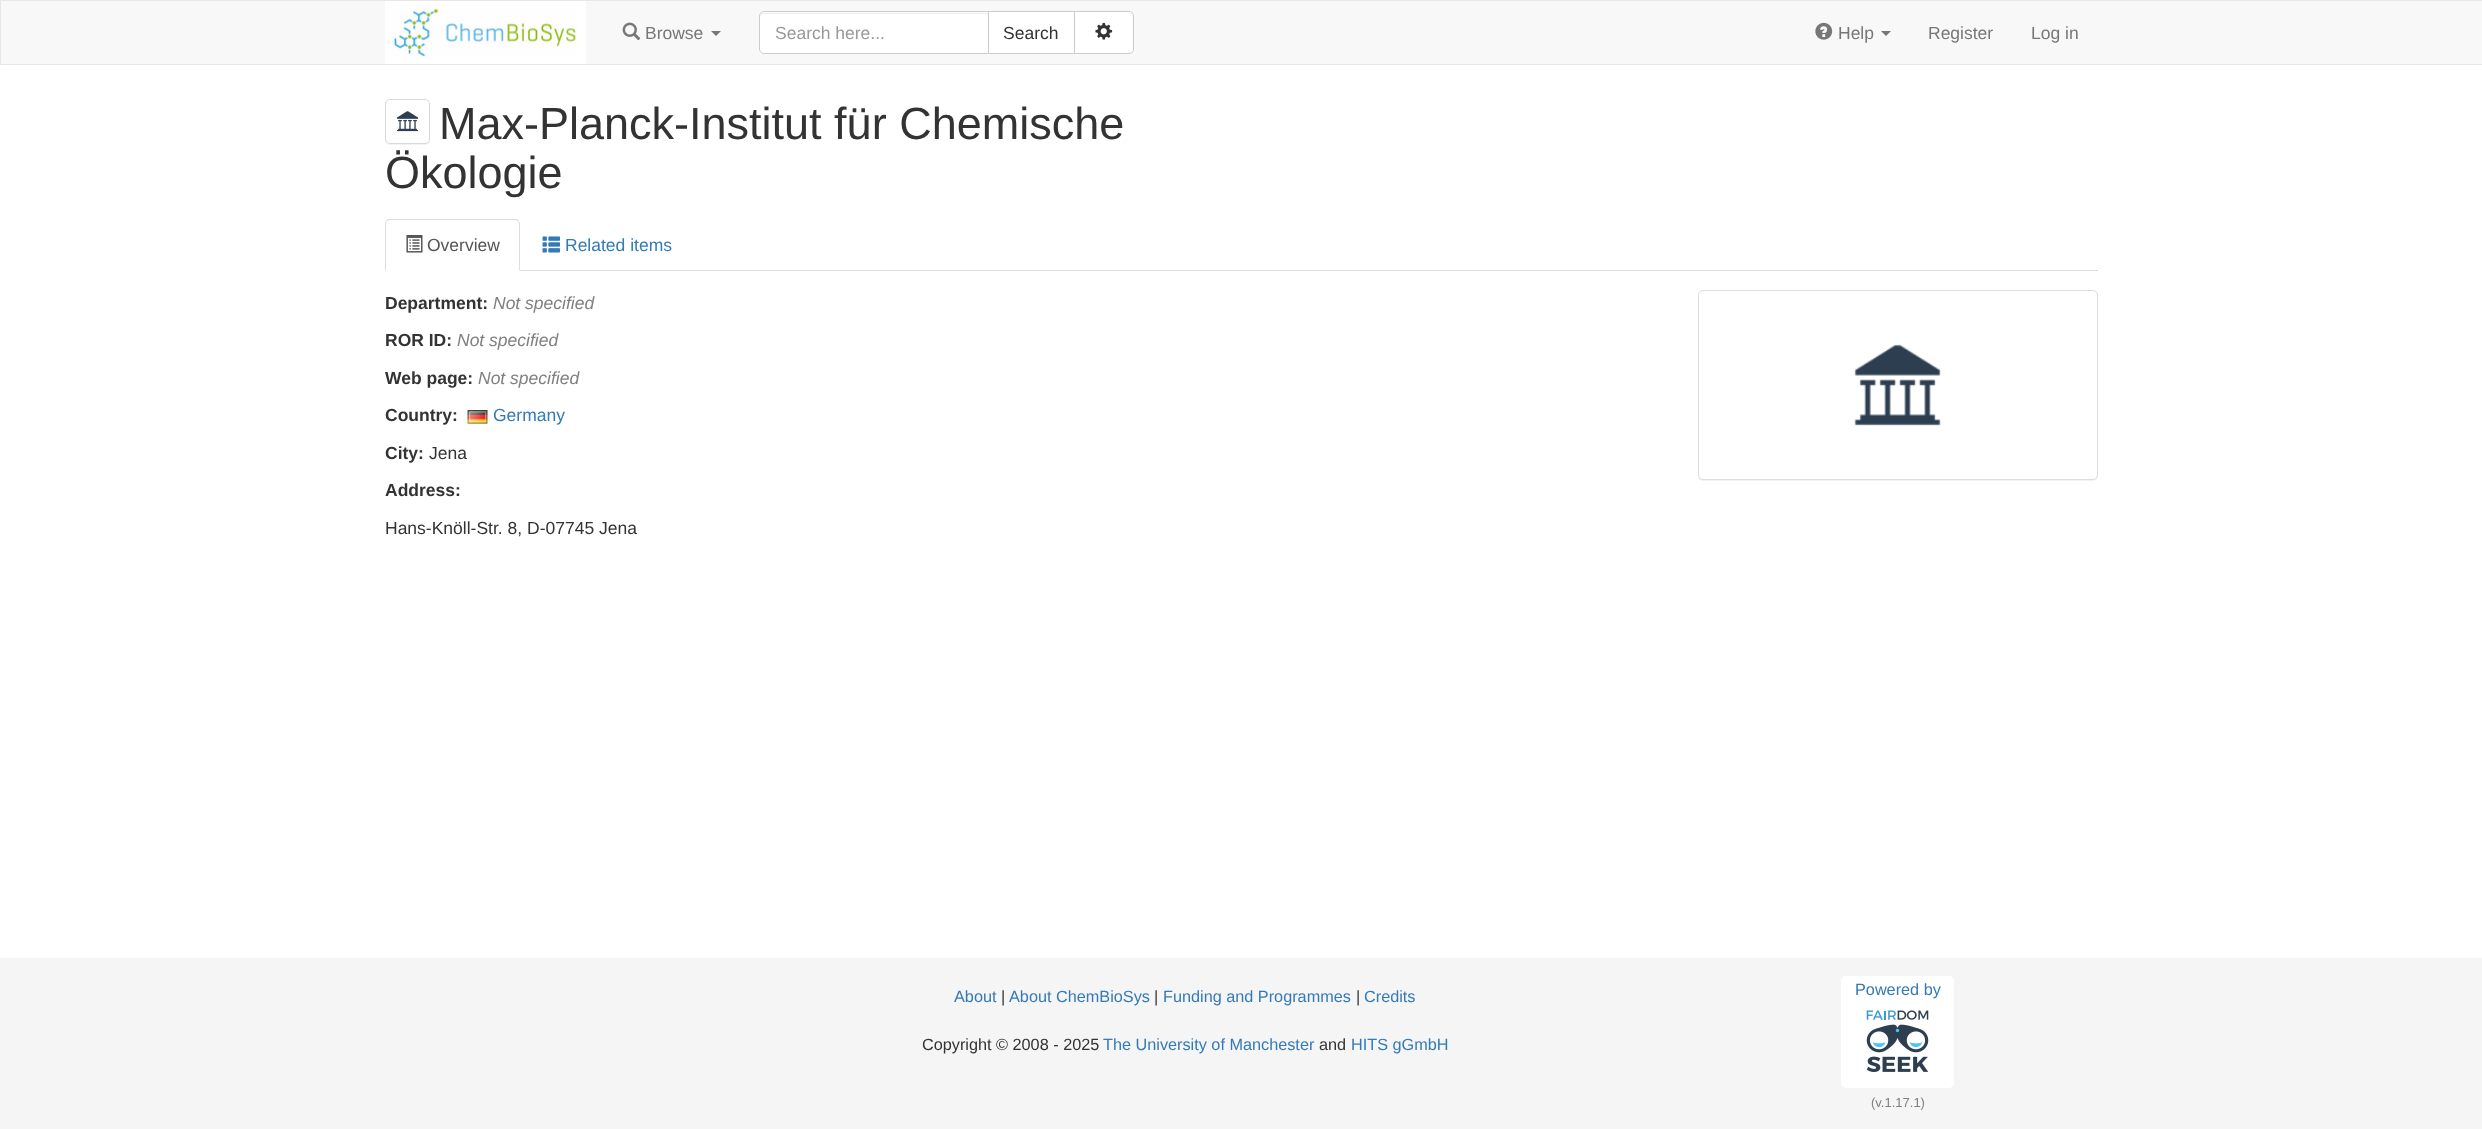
<svg xmlns="http://www.w3.org/2000/svg" width="2482" height="1129" viewBox="0 0 2482 1129">
  <rect width="100%" height="100%" fill="#fff"/>
  <path d="M0.5 0.5h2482v64H0.5z" fill="#f8f8f8" stroke="#e7e7e7"/>
  <path d="M385 1h201v63H385z" fill="#fff"/>
  <image x="392" y="8" width="185" height="49" href="img/1.png"/>
  <image x="622" y="22" width="19" height="18" href="img/2.png"/>
  <path d="M711 31H721L716 36Z" fill="#777"/>
  <path d="M764 11H989V54H764C761 54 759 52 759 49V16C759 13 761 11 764 11Z" fill="#fff"/>
  <path d="M764 14H988V13H764C761 13 760 15 760 18C760 15 762 14 764 14Z" fill="#ececec"/>
  <path d="M764 11.5H988.5V53.5H764C761.5 53.5 759.5 51.5 759.5 49V16C759.5 13.5 761.5 11.5 764 11.5Z" fill="none" stroke="#ccc"/>
  <path d="M988.5 11.5h86v42H988.5z" fill="#fff" stroke="#ccc"/>
  <path d="M1074.5 11.5H1129C1131.5 11.5 1133.5 13.5 1133.5 16V49C1133.5 51.5 1131.5 53.5 1129 53.5H1074.5Z" fill="#fff" stroke="#ccc"/>
  <image x="1095" y="22" width="18" height="18" href="img/3.png"/>
  <image x="1815" y="22" width="18" height="18" href="img/4.png"/>
  <path d="M1881 31H1891L1886 36Z" fill="#777"/>
  <rect x="385" y="100" width="45" height="45" rx="5" fill="#0000000d" filter="blur(0.5px)"/>
  <rect x="385.5" y="99.5" width="44" height="44" rx="4.5" fill="#fff" stroke="#d9d9d9"/>
  <image x="396" y="111" width="23" height="21" href="img/5.png"/>
  <path d="M520 270h1578v1H520z" fill="#ddd"/>
  <path d="M390 219C389 219 387 219 387 220V221L390 220H515L518 221V220C518 219 516 219 515 219Z" fill="#ddd"/>
  <path d="M518 220C519 221 520 222 520 224V271L519 270V223L518 221Z" fill="#ddd"/>
  <path d="M385 224V271L386 270V223L387 221V220C386 221 385 222 385 224Z" fill="#ddd"/>
  <image x="406" y="235" width="17" height="18" href="img/6.png"/>
  <image x="542" y="236" width="18" height="17" href="img/7.png"/>
  <image x="467" y="410" width="21" height="14" href="img/8.png"/>
  <rect x="1698" y="291" width="400" height="190" rx="5" fill="#0000000d" filter="blur(0.5px)"/>
  <rect x="1698.5" y="290.5" width="399" height="189" rx="4.5" fill="#fff" stroke="#ddd"/>
  <image x="1854" y="344" width="87" height="82" href="img/9.png"/>
  <path d="M0 958h2482v171H0z" fill="#f5f5f5"/>
  <rect x="1841" y="976" width="113" height="112" rx="5" fill="#fff"/>
  <image x="1866" y="1010" width="63" height="62" href="img/10.png"/>
  <text x="645" y="39" font-family="Liberation Sans" font-size="17.5" fill="#777">Browse</text>
  <text x="775" y="39" font-family="Liberation Sans" font-size="17.5" fill="#999">Search here...</text>
  <text x="1003" y="39" font-family="Liberation Sans" font-size="17.5" fill="#333">Search</text>
  <g font-family="Liberation Sans" font-size="17.5" fill="#777">
    <text x="1838" y="39">Help</text>
    <text x="1928" y="39">Register</text>
    <text x="2031" y="39">Log in</text>
  </g>
  <g font-family="Liberation Sans" font-size="45" fill="#333">
    <text x="439" y="139">Max-Planck-Institut für Chemische</text>
    <text x="385" y="188">Ökologie</text>
  </g>
  <text x="427" y="251" font-family="Liberation Sans" font-size="17.5" fill="#555">Overview</text>
  <text x="565" y="251" font-family="Liberation Sans" font-size="17.5" fill="#337ab7">Related items</text>
  <text x="385" y="309" font-family="Liberation Sans" font-size="17.5" font-weight="bold" fill="#333">Department:</text>
  <text x="493" y="309" font-family="Liberation Sans" font-size="17.5" font-style="italic" fill="#808080">Not specified</text>
  <text x="385" y="346" font-family="Liberation Sans" font-size="17.5" font-weight="bold" fill="#333">ROR ID:</text>
  <text x="457" y="346" font-family="Liberation Sans" font-size="17.5" font-style="italic" fill="#808080">Not specified</text>
  <text x="385" y="384" font-family="Liberation Sans" font-size="17.5" font-weight="bold" fill="#333">Web page:</text>
  <text x="478" y="384" font-family="Liberation Sans" font-size="17.5" font-style="italic" fill="#808080">Not specified</text>
  <text x="385" y="421" font-family="Liberation Sans" font-size="17.5" font-weight="bold" fill="#333">Country:</text>
  <text x="493" y="421" font-family="Liberation Sans" font-size="17.5" fill="#337ab7">Germany</text>
  <text x="385" y="459" font-family="Liberation Sans" font-size="17.5" font-weight="bold" fill="#333">City:</text>
  <text x="429" y="459" font-family="Liberation Sans" font-size="17.5" fill="#333">Jena</text>
  <text x="385" y="496" font-family="Liberation Sans" font-size="17.5" font-weight="bold" fill="#333">Address:</text>
  <text x="385" y="534" font-family="Liberation Sans" font-size="17.5" fill="#333">Hans-Knöll-Str. 8, D-07745 Jena</text>
  <text x="954" y="1002" font-family="Liberation Sans" font-size="16.25" fill="#337ab7">About</text>
  <text x="1001" y="1002" font-family="Liberation Sans" font-size="16.25" fill="#333">|</text>
  <text x="1009" y="1002" font-family="Liberation Sans" font-size="16.25" fill="#337ab7">About ChemBioSys</text>
  <text x="1154" y="1002" font-family="Liberation Sans" font-size="16.25" fill="#333">|</text>
  <text x="1163" y="1002" font-family="Liberation Sans" font-size="16.25" fill="#337ab7">Funding and Programmes</text>
  <text x="1356" y="1002" font-family="Liberation Sans" font-size="16.25" fill="#333">|</text>
  <g font-family="Liberation Sans" font-size="16.25" fill="#337ab7">
    <text x="1364" y="1002">Credits</text>
    <text x="1855" y="995">Powered by</text>
  </g>
  <text x="1871" y="1107" font-family="Liberation Sans" font-size="13" fill="#808080">(v.1.17.1)</text>
  <text x="922" y="1050" font-family="Liberation Sans" font-size="16.25" fill="#333">Copyright © 2008 - 2025</text>
  <text x="1103" y="1050" font-family="Liberation Sans" font-size="16.25" fill="#337ab7">The University of Manchester</text>
  <text x="1319" y="1050" font-family="Liberation Sans" font-size="16.25" fill="#333">and</text>
  <text x="1351" y="1050" font-family="Liberation Sans" font-size="16.25" fill="#337ab7">HITS gGmbH</text>
</svg>
